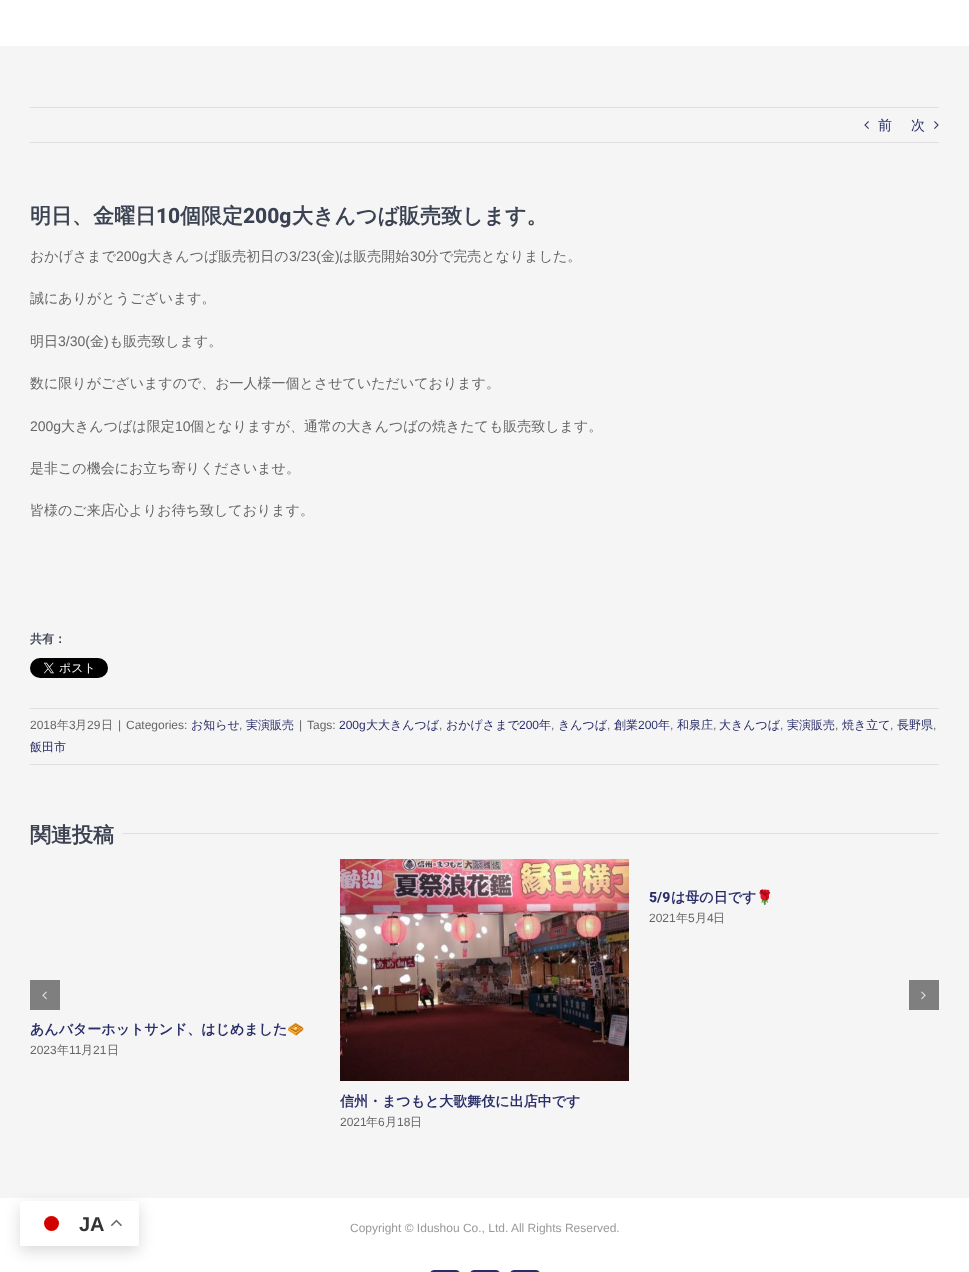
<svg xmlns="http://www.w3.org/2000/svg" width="969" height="1272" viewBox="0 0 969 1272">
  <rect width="100%" height="100%" fill="#f5f5f5"/>
  <path d="M0 0h969v46H0z" fill="#fff"/>
  <path d="M30 107h909v1H30z" fill="#e0dede"/>
  <path d="M30 142h909v1H30z" fill="#e0dede"/>
  <image x="864" y="121" width="5" height="8" href="img/1.png"/>
  <image x="934" y="121" width="5" height="8" href="img/2.png"/>
  <image x="30" y="658" width="78" height="20" href="img/3.png"/>
  <path d="M30 708h909v1H30z" fill="#e0dede"/>
  <path d="M30 764h909v1H30z" fill="#e0dede"/>
  <path d="M122 833h817v1H122z" fill="#e0dede"/>
  <image x="340" y="859" width="289" height="222" href="img/4.png"/>
  <path d="M30 980h30v30H30z" fill="#7f7f7f"/>
  <image x="42" y="991" width="5" height="9" href="img/5.png"/>
  <path d="M909 980h30v30H909z" fill="#7f7f7f"/>
  <image x="921" y="991" width="5" height="9" href="img/6.png"/>
  <path d="M0 1198h969v74H0z" fill="#fff"/>
  <rect x="430.5" y="1270.5" width="29" height="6" rx="3.5" fill="#2a2e68" stroke="#2a2e68"/>
  <rect x="470.5" y="1270.5" width="29" height="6" rx="3.5" fill="#2a2e68" stroke="#2a2e68"/>
  <rect x="510.5" y="1270.5" width="29" height="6" rx="3.5" fill="#2a2e68" stroke="#2a2e68"/>
  <rect x="20" y="1206" width="119" height="45" rx="2" fill="#00000026" filter="blur(7.5px)"/>
  <rect x="20" y="1201" width="119" height="45" rx="2" fill="#fff"/>
  <circle cx="51.5" cy="1223.5" r="7.5" fill="#d30000"/>
  <image x="111" y="1219" width="11" height="8" href="img/7.png"/>
  <g font-family="WenQuanYi Zen Hei" font-size="14" font-weight="500" fill="#2a2e68">
    <text x="878" y="130">前</text>
    <text x="911" y="130">次</text>
  </g>
  <text x="30" y="223" font-family="WenQuanYi Zen Hei" font-size="21" font-weight="bold" fill="#3b4251">明日、金曜日</text>
  <text x="156" y="223" font-family="Roboto" font-size="21" font-weight="800" fill="#3b4251">10</text>
  <text x="180" y="223" font-family="WenQuanYi Zen Hei" font-size="21" font-weight="bold" fill="#3b4251">個限定</text>
  <text x="243" y="223" font-family="Roboto" font-size="21" font-weight="800" fill="#3b4251">200g</text>
  <text x="292" y="223" font-family="WenQuanYi Zen Hei" font-size="21" font-weight="bold" fill="#3b4251">大きんつば販売致します。</text>
  <text x="30" y="261" font-family="WenQuanYi Zen Hei" font-size="14" font-weight="500" fill="#666">おかげさまで</text>
  <text x="116" y="261" font-family="Liberation Sans" font-size="14" fill="#666">200g</text>
  <text x="147" y="261" font-family="WenQuanYi Zen Hei" font-size="14" font-weight="500" fill="#666">大きんつば販売初日の</text>
  <text x="289" y="261" font-family="Liberation Sans" font-size="14" fill="#666">3/23(</text>
  <text x="321" y="261" font-family="WenQuanYi Zen Hei" font-size="14" font-weight="500" fill="#666">金</text>
  <text x="335" y="261" font-family="Liberation Sans" font-size="14" fill="#666">)</text>
  <text x="339" y="261" font-family="WenQuanYi Zen Hei" font-size="14" font-weight="500" fill="#666">は販売開始</text>
  <text x="410" y="261" font-family="Liberation Sans" font-size="14" fill="#666">30</text>
  <g font-family="WenQuanYi Zen Hei" font-size="14" font-weight="500" fill="#666">
    <text x="425" y="261">分で完売となりました。</text>
    <text x="30" y="303">誠にありがとうございます。</text>
    <text x="30" y="346">明日</text>
  </g>
  <text x="58" y="346" font-family="Liberation Sans" font-size="14" fill="#666">3/30(</text>
  <text x="90" y="346" font-family="WenQuanYi Zen Hei" font-size="14" font-weight="500" fill="#666">金</text>
  <text x="104" y="346" font-family="Liberation Sans" font-size="14" fill="#666">)</text>
  <g font-family="WenQuanYi Zen Hei" font-size="14" font-weight="500" fill="#666">
    <text x="109" y="346">も販売致します。</text>
    <text x="30" y="388">数に限りがございますので、お一人様一個とさせていただいております。</text>
  </g>
  <text x="30" y="431" font-family="Liberation Sans" font-size="14" fill="#666">200g</text>
  <text x="61" y="431" font-family="WenQuanYi Zen Hei" font-size="14" font-weight="500" fill="#666">大きんつばは限定</text>
  <text x="175" y="431" font-family="Liberation Sans" font-size="14" fill="#666">10</text>
  <g font-family="WenQuanYi Zen Hei" font-size="14" font-weight="500" fill="#666">
    <text x="190" y="431">個となりますが、通常の大きんつばの焼きたても販売致します。</text>
    <text x="30" y="473">是非この機会にお立ち寄りくださいませ。</text>
    <text x="30" y="515">皆様のご来店心よりお待ち致しております。</text>
  </g>
  <text x="30" y="643" font-family="WenQuanYi Zen Hei" font-size="12" font-weight="bold" fill="#3b4251">共有：</text>
  <text x="30" y="729" font-family="Liberation Sans" font-size="12" fill="#666">2018</text>
  <text x="57" y="729" font-family="WenQuanYi Zen Hei" font-size="12" font-weight="500" fill="#666">年</text>
  <text x="69" y="729" font-family="Liberation Sans" font-size="12" fill="#666">3</text>
  <text x="75" y="729" font-family="WenQuanYi Zen Hei" font-size="12" font-weight="500" fill="#666">月</text>
  <text x="87" y="729" font-family="Liberation Sans" font-size="12" fill="#666">29</text>
  <text x="101" y="729" font-family="WenQuanYi Zen Hei" font-size="12" font-weight="500" fill="#666">日</text>
  <g font-family="Liberation Sans" font-size="12" fill="#666">
    <text x="118" y="729">|</text>
    <text x="126" y="729">Categories:</text>
  </g>
  <text x="191" y="729" font-family="WenQuanYi Zen Hei" font-size="12" font-weight="500" fill="#2a2e68">お知らせ</text>
  <text x="239" y="729" font-family="Liberation Sans" font-size="12" fill="#666">,</text>
  <text x="246" y="729" font-family="WenQuanYi Zen Hei" font-size="12" font-weight="500" fill="#2a2e68">実演販売</text>
  <g font-family="Liberation Sans" font-size="12" fill="#666">
    <text x="299" y="729">|</text>
    <text x="307" y="729">Tags:</text>
  </g>
  <text x="339" y="729" font-family="Liberation Sans" font-size="12" fill="#2a2e68">200g</text>
  <text x="366" y="729" font-family="WenQuanYi Zen Hei" font-size="12" font-weight="500" fill="#2a2e68">大大きんつば</text>
  <text x="439" y="729" font-family="Liberation Sans" font-size="12" fill="#666">,</text>
  <text x="446" y="729" font-family="WenQuanYi Zen Hei" font-size="12" font-weight="500" fill="#2a2e68">おかげさまで</text>
  <text x="519" y="729" font-family="Liberation Sans" font-size="12" fill="#2a2e68">200</text>
  <text x="539" y="729" font-family="WenQuanYi Zen Hei" font-size="12" font-weight="500" fill="#2a2e68">年</text>
  <text x="551" y="729" font-family="Liberation Sans" font-size="12" fill="#666">,</text>
  <text x="558" y="729" font-family="WenQuanYi Zen Hei" font-size="12" font-weight="500" fill="#2a2e68">きんつば</text>
  <text x="607" y="729" font-family="Liberation Sans" font-size="12" fill="#666">,</text>
  <text x="614" y="729" font-family="WenQuanYi Zen Hei" font-size="12" font-weight="500" fill="#2a2e68">創業</text>
  <text x="638" y="729" font-family="Liberation Sans" font-size="12" fill="#2a2e68">200</text>
  <text x="658" y="729" font-family="WenQuanYi Zen Hei" font-size="12" font-weight="500" fill="#2a2e68">年</text>
  <text x="670" y="729" font-family="Liberation Sans" font-size="12" fill="#666">,</text>
  <text x="677" y="729" font-family="WenQuanYi Zen Hei" font-size="12" font-weight="500" fill="#2a2e68">和泉庄</text>
  <text x="713" y="729" font-family="Liberation Sans" font-size="12" fill="#666">,</text>
  <text x="719" y="729" font-family="WenQuanYi Zen Hei" font-size="12" font-weight="500" fill="#2a2e68">大きんつば</text>
  <text x="780" y="729" font-family="Liberation Sans" font-size="12" fill="#666">,</text>
  <text x="787" y="729" font-family="WenQuanYi Zen Hei" font-size="12" font-weight="500" fill="#2a2e68">実演販売</text>
  <text x="835" y="729" font-family="Liberation Sans" font-size="12" fill="#666">,</text>
  <text x="842" y="729" font-family="WenQuanYi Zen Hei" font-size="12" font-weight="500" fill="#2a2e68">焼き立て</text>
  <text x="890" y="729" font-family="Liberation Sans" font-size="12" fill="#666">,</text>
  <text x="897" y="729" font-family="WenQuanYi Zen Hei" font-size="12" font-weight="500" fill="#2a2e68">長野県</text>
  <text x="933" y="729" font-family="Liberation Sans" font-size="12" fill="#666">,</text>
  <text x="30" y="751" font-family="WenQuanYi Zen Hei" font-size="12" font-weight="500" fill="#2a2e68">飯田市</text>
  <text x="30" y="842" font-family="WenQuanYi Zen Hei" font-size="21" font-weight="bold" fill="#3b4251">関連投稿</text>
  <text x="649" y="902" font-family="Roboto" font-size="14" font-weight="800" fill="#2a2e68">5/9</text>
  <text x="671" y="902" font-family="WenQuanYi Zen Hei" font-size="14" font-weight="bold" fill="#2a2e68">は母の日です</text>
  <text x="756" y="902" font-family="Noto Color Emoji" font-size="14" font-weight="bold" fill="#2a2e68">🌹</text>
  <text x="649" y="922" font-family="Liberation Sans" font-size="12" fill="#666">2021</text>
  <text x="676" y="922" font-family="WenQuanYi Zen Hei" font-size="12" font-weight="500" fill="#666">年</text>
  <text x="688" y="922" font-family="Liberation Sans" font-size="12" fill="#666">5</text>
  <text x="695" y="922" font-family="WenQuanYi Zen Hei" font-size="12" font-weight="500" fill="#666">月</text>
  <text x="707" y="922" font-family="Liberation Sans" font-size="12" fill="#666">4</text>
  <text x="713" y="922" font-family="WenQuanYi Zen Hei" font-size="12" font-weight="500" fill="#666">日</text>
  <text x="30" y="1034" font-family="WenQuanYi Zen Hei" font-size="14" font-weight="bold" fill="#2a2e68">あんバターホットサンド、はじめました</text>
  <text x="287" y="1034" font-family="Noto Color Emoji" font-size="14" font-weight="bold" fill="#2a2e68">🧇</text>
  <text x="30" y="1054" font-family="Liberation Sans" font-size="12" fill="#666">2023</text>
  <text x="57" y="1054" font-family="WenQuanYi Zen Hei" font-size="12" font-weight="500" fill="#666">年</text>
  <text x="69" y="1054" font-family="Liberation Sans" font-size="12" fill="#666">11</text>
  <text x="81" y="1054" font-family="WenQuanYi Zen Hei" font-size="12" font-weight="500" fill="#666">月</text>
  <text x="93" y="1054" font-family="Liberation Sans" font-size="12" fill="#666">21</text>
  <text x="107" y="1054" font-family="WenQuanYi Zen Hei" font-size="12" font-weight="500" fill="#666">日</text>
  <text x="340" y="1106" font-family="WenQuanYi Zen Hei" font-size="14" font-weight="bold" fill="#2a2e68">信州・まつもと大歌舞伎に出店中です</text>
  <text x="340" y="1126" font-family="Liberation Sans" font-size="12" fill="#666">2021</text>
  <text x="366" y="1126" font-family="WenQuanYi Zen Hei" font-size="12" font-weight="500" fill="#666">年</text>
  <text x="378" y="1126" font-family="Liberation Sans" font-size="12" fill="#666">6</text>
  <text x="385" y="1126" font-family="WenQuanYi Zen Hei" font-size="12" font-weight="500" fill="#666">月</text>
  <text x="397" y="1126" font-family="Liberation Sans" font-size="12" fill="#666">18</text>
  <text x="410" y="1126" font-family="WenQuanYi Zen Hei" font-size="12" font-weight="500" fill="#666">日</text>
  <text x="350" y="1232" font-family="Liberation Sans" font-size="12" fill="#999">Copyright © Idushou Co., Ltd. All Rights Reserved.</text>
  <text x="79" y="1231" font-family="Liberation Sans" font-size="20" font-weight="bold" fill="#333">JA</text>
</svg>
